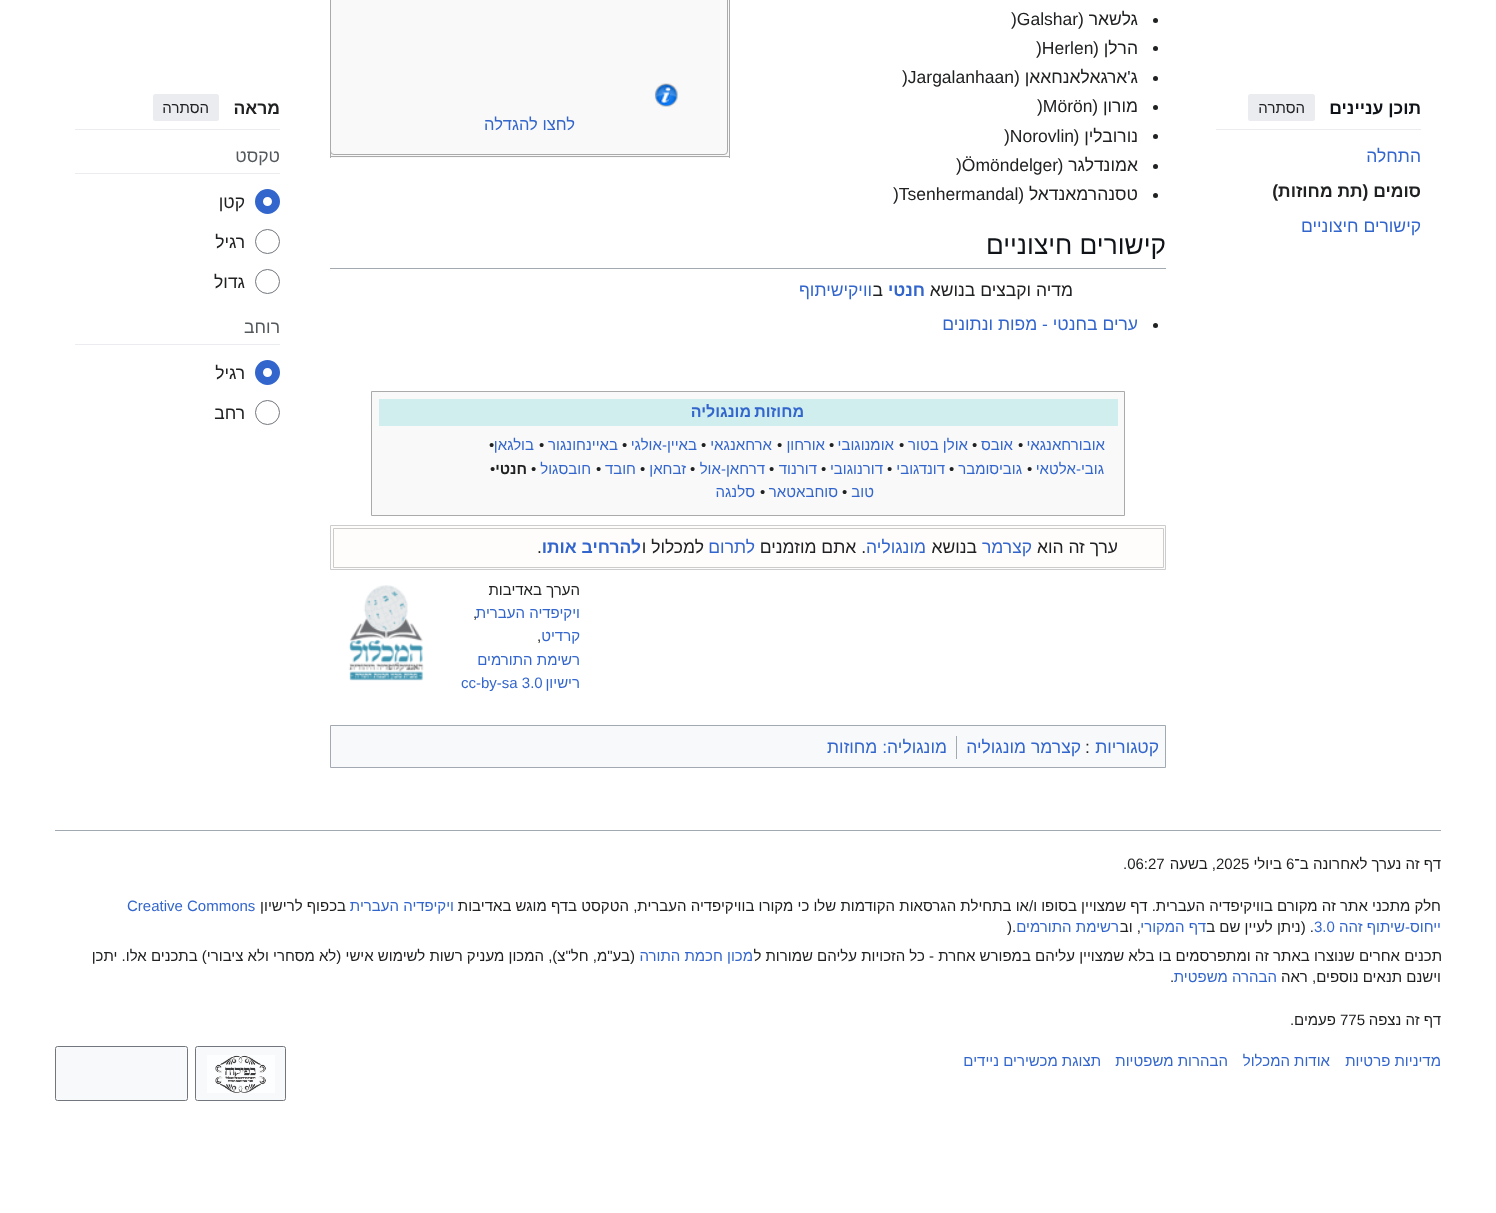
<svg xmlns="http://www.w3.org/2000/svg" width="1496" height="1213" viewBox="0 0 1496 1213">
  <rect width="100%" height="100%" fill="#fff"/>
  <path d="M1216 129h205v1H1216z" fill="#eaecf0"/>
  <rect x="1248" y="94" width="67" height="27" rx="2.5" fill="#eaecf0"/>
  <circle cx="1155.5" cy="20.5" r="2.5" fill="#202122"/>
  <circle cx="1155.5" cy="48.5" r="2.5" fill="#202122"/>
  <circle cx="1155.5" cy="78.5" r="2.5" fill="#202122"/>
  <circle cx="1155.5" cy="107.5" r="2.5" fill="#202122"/>
  <circle cx="1155.5" cy="136.5" r="2.5" fill="#202122"/>
  <circle cx="1155.5" cy="166.5" r="2.5" fill="#202122"/>
  <circle cx="1155.5" cy="195.5" r="2.5" fill="#202122"/>
  <path d="M331 0h398v158H331z" fill="#f9f9f9"/>
  <path d="M729 0h1v158H729z" fill="#aaa"/>
  <path d="M330 156h400v1H330z" fill="#aaa"/>
  <path d="M330 151h1v7H330z" fill="#aaa"/>
  <rect x="330.5" y="-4.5" width="397" height="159" rx="3.5" fill="none" stroke="#aaa"/>
  <image x="654" y="83" width="24" height="24" href="img/1.png"/>
  <path d="M330 268h836v1H330z" fill="#a2a9b1"/>
  <circle cx="1155.5" cy="325.5" r="2.5" fill="#202122"/>
  <path d="M371.5 391.5h753v124H371.5z" fill="#f9f9f9" stroke="#aaa"/>
  <path d="M379 399h739v27H379z" fill="#d1eeee"/>
  <path d="M330.5 525.5h835v44H330.5z" fill="#fffcfc" stroke="#ccc"/>
  <path d="M333.5 528.5h830v39H333.5z" fill="none" stroke="#ccc"/>
  <image x="348" y="585" width="76" height="96" href="img/2.png"/>
  <path d="M330.5 725.5h835v42H330.5z" fill="#f8f9fa" stroke="#a2a9b1"/>
  <path d="M956 736h1v23H956z" fill="#a2a9b1"/>
  <path d="M75 129h205v1H75z" fill="#eaecf0"/>
  <rect x="153" y="94" width="66" height="27" rx="2.5" fill="#eaecf0"/>
  <path d="M75 173h205v1H75z" fill="#eaecf0"/>
  <circle cx="267.5" cy="201.5" r="8.5" fill="none" stroke="#36c" stroke-width="8"/>
  <circle cx="267.5" cy="241.5" r="12" fill="none" stroke="#72777d"/>
  <circle cx="267.5" cy="281.5" r="12" fill="none" stroke="#72777d"/>
  <path d="M75 344h205v1H75z" fill="#eaecf0"/>
  <circle cx="267.5" cy="372.5" r="8.5" fill="none" stroke="#36c" stroke-width="8"/>
  <circle cx="267.5" cy="412.5" r="12" fill="none" stroke="#72777d"/>
  <path d="M55 830h1386v1H55z" fill="#a2a9b1"/>
  <rect x="195.5" y="1046.5" width="90" height="54" rx="2" fill="#f8f9fa" stroke="#72777d"/>
  <image x="207" y="1055" width="68" height="38" href="img/3.png"/>
  <rect x="55.5" y="1046.5" width="132" height="54" rx="2" fill="#f8f9fa" stroke="#72777d"/>
  <text x="1421" y="114" font-family="Liberation Sans" font-size="17.5" font-weight="bold" direction="rtl" fill="#101418">תוכן עניינים</text>
  <text x="1305" y="113" font-family="Liberation Sans" font-size="15" direction="rtl" fill="#202122">הסתרה</text>
  <text x="1421" y="162" font-family="Liberation Sans" font-size="17.5" direction="rtl" fill="#36c">התחלה</text>
  <text x="1421" y="197" font-family="Liberation Sans" font-size="17.5" font-weight="bold" direction="rtl" fill="#202122">סומים (תת מחוזות)</text>
  <text x="1421" y="232" font-family="Liberation Sans" font-size="17.5" direction="rtl" fill="#36c">קישורים חיצוניים</text>
  <text x="1138" y="25" font-family="Liberation Sans" font-size="17.5" direction="rtl" fill="#202122">גלשאר (</text>
  <text x="1011" y="25" font-family="Liberation Sans" font-size="17.5" fill="#202122">)Galshar</text>
  <text x="1138" y="54" font-family="Liberation Sans" font-size="17.5" direction="rtl" fill="#202122">הרלן (</text>
  <text x="1036" y="54" font-family="Liberation Sans" font-size="17.5" fill="#202122">)Herlen</text>
  <text x="1138" y="83" font-family="Liberation Sans" font-size="17.5" direction="rtl" fill="#202122">ג'ארגאלאנחאאן (</text>
  <text x="902" y="83" font-family="Liberation Sans" font-size="17.5" fill="#202122">)Jargalanhaan</text>
  <text x="1138" y="112" font-family="Liberation Sans" font-size="17.5" direction="rtl" fill="#202122">מורון (</text>
  <text x="1037" y="112" font-family="Liberation Sans" font-size="17.5" fill="#202122">)Mörön</text>
  <text x="1138" y="142" font-family="Liberation Sans" font-size="17.5" direction="rtl" fill="#202122">נורובלין (</text>
  <g font-family="Liberation Sans" font-size="17.5" fill="#202122">
    <text x="1004" y="142">)Norovlin</text>
    <text x="956" y="171">)Ömöndelger</text>
  </g>
  <g font-family="Liberation Sans" font-size="17.5" direction="rtl" fill="#202122">
    <text x="1138" y="171">אמונדלגר (</text>
    <text x="1138" y="200">טסנהרמאנדאל (</text>
  </g>
  <text x="893" y="200" font-family="Liberation Sans" font-size="17.5" fill="#202122">)Tsenhermandal</text>
  <text x="575" y="130" font-family="Liberation Sans" font-size="16.5" direction="rtl" fill="#36c">לחצו להגדלה</text>
  <text x="1166" y="254" font-family="Liberation Sans" font-size="26.25" direction="rtl" fill="#101418">קישורים חיצוניים</text>
  <text x="1073" y="296" font-family="Liberation Sans" font-size="17.5" direction="rtl" fill="#202122">מדיה וקבצים בנושא</text>
  <text x="925" y="296" font-family="Liberation Sans" font-size="17.5" font-weight="bold" direction="rtl" fill="#36c">חנטי</text>
  <text x="883" y="296" font-family="Liberation Sans" font-size="17.5" direction="rtl" fill="#202122">ב</text>
  <g font-family="Liberation Sans" font-size="17.5" direction="rtl" fill="#36c">
    <text x="872" y="296">וויקישיתוף</text>
    <text x="1138" y="330">ערים בחנטי - מפות ונתונים</text>
  </g>
  <g font-family="Liberation Sans" font-size="16" font-weight="bold" direction="rtl" fill="#36c">
    <text x="804" y="417">מחוזות</text>
    <text x="751" y="417">מונגוליה</text>
  </g>
  <text x="1105" y="450" font-family="Liberation Sans" font-size="15" direction="rtl" fill="#36c">אובורחאנגאי</text>
  <text x="1018" y="450" font-family="Liberation Sans" font-size="15" fill="#202122">•</text>
  <text x="1013" y="450" font-family="Liberation Sans" font-size="15" direction="rtl" fill="#36c">אובס</text>
  <text x="972" y="450" font-family="Liberation Sans" font-size="15" fill="#202122">•</text>
  <text x="968" y="450" font-family="Liberation Sans" font-size="15" direction="rtl" fill="#36c">אולן בטור</text>
  <text x="899" y="450" font-family="Liberation Sans" font-size="15" fill="#202122">•</text>
  <text x="894" y="450" font-family="Liberation Sans" font-size="15" direction="rtl" fill="#36c">אומנוגובי</text>
  <text x="829" y="450" font-family="Liberation Sans" font-size="15" fill="#202122">•</text>
  <text x="825" y="450" font-family="Liberation Sans" font-size="15" direction="rtl" fill="#36c">אורחון</text>
  <text x="777" y="450" font-family="Liberation Sans" font-size="15" fill="#202122">•</text>
  <text x="772" y="450" font-family="Liberation Sans" font-size="15" direction="rtl" fill="#36c">ארחאנגאי</text>
  <text x="701" y="450" font-family="Liberation Sans" font-size="15" fill="#202122">•</text>
  <text x="697" y="450" font-family="Liberation Sans" font-size="15" direction="rtl" fill="#36c">באיין-אולגי</text>
  <text x="622" y="450" font-family="Liberation Sans" font-size="15" fill="#202122">•</text>
  <text x="618" y="450" font-family="Liberation Sans" font-size="15" direction="rtl" fill="#36c">באיינחונגור</text>
  <text x="539" y="450" font-family="Liberation Sans" font-size="15" fill="#202122">•</text>
  <text x="534" y="450" font-family="Liberation Sans" font-size="15" direction="rtl" fill="#36c">בולגאן</text>
  <text x="489" y="450" font-family="Liberation Sans" font-size="15" fill="#202122">•</text>
  <text x="1104" y="474" font-family="Liberation Sans" font-size="15" direction="rtl" fill="#36c">גובי-אלטאי</text>
  <text x="1027" y="474" font-family="Liberation Sans" font-size="15" fill="#202122">•</text>
  <text x="1022" y="474" font-family="Liberation Sans" font-size="15" direction="rtl" fill="#36c">גוביסומבר</text>
  <text x="949" y="474" font-family="Liberation Sans" font-size="15" fill="#202122">•</text>
  <text x="945" y="474" font-family="Liberation Sans" font-size="15" direction="rtl" fill="#36c">דונדגובי</text>
  <text x="887" y="474" font-family="Liberation Sans" font-size="15" fill="#202122">•</text>
  <text x="883" y="474" font-family="Liberation Sans" font-size="15" direction="rtl" fill="#36c">דורנוגובי</text>
  <text x="821" y="474" font-family="Liberation Sans" font-size="15" fill="#202122">•</text>
  <text x="817" y="474" font-family="Liberation Sans" font-size="15" direction="rtl" fill="#36c">דורנוד</text>
  <text x="769" y="474" font-family="Liberation Sans" font-size="15" fill="#202122">•</text>
  <text x="765" y="474" font-family="Liberation Sans" font-size="15" direction="rtl" fill="#36c">דרחאן-אול</text>
  <text x="690" y="474" font-family="Liberation Sans" font-size="15" fill="#202122">•</text>
  <text x="686" y="474" font-family="Liberation Sans" font-size="15" direction="rtl" fill="#36c">זבחאן</text>
  <text x="640" y="474" font-family="Liberation Sans" font-size="15" fill="#202122">•</text>
  <text x="636" y="474" font-family="Liberation Sans" font-size="15" direction="rtl" fill="#36c">חובד</text>
  <text x="596" y="474" font-family="Liberation Sans" font-size="15" fill="#202122">•</text>
  <text x="591" y="474" font-family="Liberation Sans" font-size="15" direction="rtl" fill="#36c">חובסגול</text>
  <text x="531" y="474" font-family="Liberation Sans" font-size="15" fill="#202122">•</text>
  <text x="527" y="474" font-family="Liberation Sans" font-size="15" font-weight="bold" direction="rtl" fill="#202122">חנטי</text>
  <text x="490" y="474" font-family="Liberation Sans" font-size="15" fill="#202122">•</text>
  <text x="874" y="497" font-family="Liberation Sans" font-size="15" direction="rtl" fill="#36c">טוב</text>
  <text x="842" y="497" font-family="Liberation Sans" font-size="15" fill="#202122">•</text>
  <text x="838" y="497" font-family="Liberation Sans" font-size="15" direction="rtl" fill="#36c">סוחבאטאר</text>
  <text x="760" y="497" font-family="Liberation Sans" font-size="15" fill="#202122">•</text>
  <text x="755" y="497" font-family="Liberation Sans" font-size="15" direction="rtl" fill="#36c">סלנגה</text>
  <text x="1118" y="553" font-family="Liberation Sans" font-size="17.5" direction="rtl" fill="#202122">ערך זה הוא</text>
  <text x="1032" y="553" font-family="Liberation Sans" font-size="17.5" direction="rtl" fill="#36c">קצרמר</text>
  <text x="977" y="553" font-family="Liberation Sans" font-size="17.5" direction="rtl" fill="#202122">בנושא</text>
  <text x="926" y="553" font-family="Liberation Sans" font-size="17.5" direction="rtl" fill="#36c">מונגוליה</text>
  <text x="866" y="553" font-family="Liberation Sans" font-size="17.5" direction="rtl" fill="#202122">. אתם מוזמנים</text>
  <text x="755" y="553" font-family="Liberation Sans" font-size="17.5" direction="rtl" fill="#36c">לתרום</text>
  <text x="704" y="553" font-family="Liberation Sans" font-size="17.5" direction="rtl" fill="#202122">למכלול ו</text>
  <text x="641" y="553" font-family="Liberation Sans" font-size="17.5" font-weight="bold" direction="rtl" fill="#36c">להרחיב אותו</text>
  <text x="537" y="553" font-family="Liberation Sans" font-size="17.5" fill="#202122">.</text>
  <text x="580" y="595" font-family="Liberation Sans" font-size="15" direction="rtl" fill="#202122">הערך באדיבות</text>
  <text x="580" y="618" font-family="Liberation Sans" font-size="15" direction="rtl" fill="#36c">ויקיפדיה העברית</text>
  <text x="473" y="618" font-family="Liberation Sans" font-size="15" fill="#202122">,</text>
  <text x="580" y="641" font-family="Liberation Sans" font-size="15" direction="rtl" fill="#36c">קרדיט</text>
  <text x="537" y="641" font-family="Liberation Sans" font-size="15" fill="#202122">,</text>
  <g font-family="Liberation Sans" font-size="15" direction="rtl" fill="#36c">
    <text x="580" y="665">רשימת התורמים</text>
    <text x="580" y="688">רישיון</text>
  </g>
  <text x="461" y="688" font-family="Liberation Sans" font-size="15" fill="#36c">cc-by-sa 3.0</text>
  <text x="1159" y="753" font-family="Liberation Sans" font-size="17.5" direction="rtl" fill="#36c">קטגוריות</text>
  <text x="1085" y="753" font-family="Liberation Sans" font-size="17.5" fill="#202122">:</text>
  <g font-family="Liberation Sans" font-size="17.5" direction="rtl" fill="#36c">
    <text x="1081" y="753">קצרמר מונגוליה</text>
    <text x="947" y="753">מונגוליה: מחוזות</text>
  </g>
  <text x="280" y="114" font-family="Liberation Sans" font-size="17.5" font-weight="bold" direction="rtl" fill="#202122">מראה</text>
  <text x="209" y="113" font-family="Liberation Sans" font-size="15" direction="rtl" fill="#202122">הסתרה</text>
  <text x="280" y="162" font-family="Liberation Sans" font-size="17.5" direction="rtl" fill="#54595d">טקסט</text>
  <g font-family="Liberation Sans" font-size="17.5" direction="rtl" fill="#202122">
    <text x="245" y="208">קטן</text>
    <text x="245" y="248">רגיל</text>
    <text x="245" y="288">גדול</text>
  </g>
  <text x="280" y="333" font-family="Liberation Sans" font-size="17.5" direction="rtl" fill="#54595d">רוחב</text>
  <g font-family="Liberation Sans" font-size="17.5" direction="rtl" fill="#202122">
    <text x="245" y="379">רגיל</text>
    <text x="245" y="419">רחב</text>
  </g>
  <text x="1441" y="869" font-family="Liberation Sans" font-size="15" direction="rtl" fill="#202122">דף זה נערך לאחרונה ב־</text>
  <text x="1286" y="869" font-family="Liberation Sans" font-size="15" fill="#202122">6</text>
  <text x="1282" y="869" font-family="Liberation Sans" font-size="15" direction="rtl" fill="#202122">ביולי</text>
  <text x="1216" y="869" font-family="Liberation Sans" font-size="15" fill="#202122">2025</text>
  <text x="1216" y="869" font-family="Liberation Sans" font-size="15" direction="rtl" fill="#202122">, בשעה</text>
  <text x="1123" y="869" font-family="Liberation Sans" font-size="15" fill="#202122">.06:27</text>
  <text x="1441" y="911" font-family="Liberation Sans" font-size="15" direction="rtl" fill="#202122">חלק מתכני אתר זה מקורם בוויקיפדיה העברית. דף שמצויין בסופו ו/או בתחילת הגרסאות הקודמות שלו כי מקורו בוויקיפדיה העברית, הטקסט בדף מוגש באדיבות</text>
  <text x="454" y="911" font-family="Liberation Sans" font-size="15" direction="rtl" fill="#36c">ויקיפדיה העברית</text>
  <text x="346" y="911" font-family="Liberation Sans" font-size="15" direction="rtl" fill="#202122">בכפוף לרישיון</text>
  <text x="127" y="911" font-family="Liberation Sans" font-size="15" fill="#36c">Creative Commons</text>
  <text x="1441" y="932" font-family="Liberation Sans" font-size="15" direction="rtl" fill="#36c">ייחוס-שיתוף זהה</text>
  <text x="1314" y="932" font-family="Liberation Sans" font-size="15" fill="#36c">3.0</text>
  <text x="1314" y="932" font-family="Liberation Sans" font-size="15" direction="rtl" fill="#202122">. (ניתן לעיין שם ב</text>
  <text x="1206" y="932" font-family="Liberation Sans" font-size="15" direction="rtl" fill="#36c">דף המקורי</text>
  <text x="1141" y="932" font-family="Liberation Sans" font-size="15" direction="rtl" fill="#202122">, וב</text>
  <text x="1119" y="932" font-family="Liberation Sans" font-size="15" direction="rtl" fill="#36c">רשימת התורמים</text>
  <text x="1007" y="932" font-family="Liberation Sans" font-size="15" fill="#202122">).</text>
  <text x="1442" y="961" font-family="Liberation Sans" font-size="15" direction="rtl" fill="#202122">תכנים אחרים שנוצרו באתר זה ומתפרסמים בו בלא שמצויין עליהם במפורש אחרת - כל הזכויות עליהם שמורות ל</text>
  <text x="753" y="961" font-family="Liberation Sans" font-size="15" direction="rtl" fill="#36c">מכון חכמת התורה</text>
  <g font-family="Liberation Sans" font-size="15" direction="rtl" fill="#202122">
    <text x="635" y="961">(בע"מ, חל"צ), המכון מעניק רשות לשימוש אישי (לא מסחרי ולא ציבורי) בתכנים אלו. יתכן</text>
    <text x="1441" y="982">וישנם תנאים נוספים, ראה</text>
  </g>
  <text x="1277" y="982" font-family="Liberation Sans" font-size="15" direction="rtl" fill="#36c">הבהרה משפטית</text>
  <text x="1170" y="982" font-family="Liberation Sans" font-size="15" fill="#202122">.</text>
  <text x="1441" y="1025" font-family="Liberation Sans" font-size="15" direction="rtl" fill="#202122">דף זה נצפה</text>
  <text x="1340" y="1025" font-family="Liberation Sans" font-size="15" fill="#202122">775</text>
  <text x="1336" y="1025" font-family="Liberation Sans" font-size="15" direction="rtl" fill="#202122">פעמים.</text>
  <g font-family="Liberation Sans" font-size="15" direction="rtl" fill="#36c">
    <text x="1441" y="1066">מדיניות פרטיות</text>
    <text x="1330" y="1066">אודות המכלול</text>
    <text x="1228" y="1066">הבהרות משפטיות</text>
    <text x="1101" y="1066">תצוגת מכשירים ניידים</text>
  </g>
</svg>
